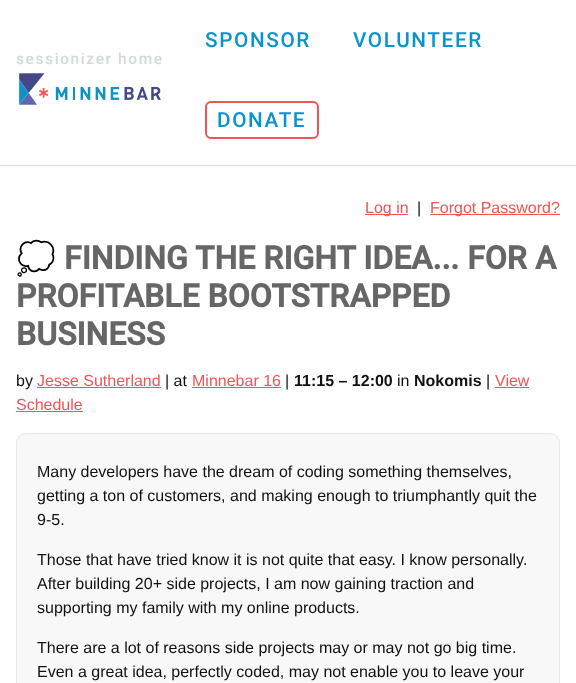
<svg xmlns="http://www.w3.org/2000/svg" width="576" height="683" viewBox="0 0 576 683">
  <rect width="100%" height="100%" fill="#fff"/>
  <path d="M0 165h576v1H0z" fill="#d1d9dc"/>
  <image x="19" y="73" width="142" height="32" href="img/1.png"/>
  <rect x="206" y="102" width="112" height="36" rx="5" fill="none" stroke="#f05555" stroke-width="2"/>
  <path d="M365 214h43v1H365z" fill="#f05555"/>
  <path d="M430 214h130v1H430z" fill="#f05555"/>
  <path d="M37 387h124v1H37z" fill="#f05555"/>
  <path d="M192 387h89v1H192z" fill="#f05555"/>
  <path d="M495 387h34v1H495z" fill="#f05555"/>
  <path d="M16 411h67v1H16z" fill="#f05555"/>
  <rect x="16.5" y="433.5" width="543" height="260" rx="9.5" fill="#f8f8f8" stroke="#e8e8e8"/>
  <text x="16" y="64" font-family="Roboto" font-size="15.5" font-weight="500" letter-spacing="1.6" fill="#d1d9dc">sessionizer home</text>
  <g font-family="Roboto" font-size="20.75" font-weight="500" letter-spacing="1.6" fill="#0994ca">
    <text x="205" y="47">SPONSOR</text>
    <text x="353" y="47">VOLUNTEER</text>
    <text x="217" y="127">DONATE</text>
  </g>
  <text x="365" y="213" font-family="Liberation Sans" font-size="16" fill="#f05555">Log in</text>
  <text x="417" y="213" font-family="Liberation Sans" font-size="16" fill="#111">|</text>
  <text x="430" y="213" font-family="Liberation Sans" font-size="16" fill="#f05555">Forgot Password?</text>
  <text x="16" y="269" font-family="Noto Color Emoji" font-size="32" font-weight="bold" fill="#666">💭</text>
  <g font-family="Roboto" font-size="32" font-weight="bold" fill="#666">
    <text x="64" y="269">FINDING THE RIGHT IDEA... FOR A</text>
    <text x="16" y="307">PROFITABLE BOOTSTRAPPED</text>
    <text x="16" y="345">BUSINESS</text>
  </g>
  <text x="16" y="386" font-family="Liberation Sans" font-size="16" fill="#111">by</text>
  <text x="37" y="386" font-family="Liberation Sans" font-size="16" fill="#f05555">Jesse Sutherland</text>
  <text x="165" y="386" font-family="Liberation Sans" font-size="16" fill="#111">| at</text>
  <text x="192" y="386" font-family="Liberation Sans" font-size="16" fill="#f05555">Minnebar 16</text>
  <text x="285" y="386" font-family="Liberation Sans" font-size="16" fill="#111">|</text>
  <text x="294" y="386" font-family="Liberation Sans" font-size="16" font-weight="bold" fill="#111">11:15 – 12:00</text>
  <text x="397" y="386" font-family="Liberation Sans" font-size="16" fill="#111">in</text>
  <text x="414" y="386" font-family="Liberation Sans" font-size="16" font-weight="bold" fill="#111">Nokomis</text>
  <text x="486" y="386" font-family="Liberation Sans" font-size="16" fill="#111">|</text>
  <g font-family="Liberation Sans" font-size="16" fill="#f05555">
    <text x="495" y="386">View</text>
    <text x="16" y="410">Schedule</text>
  </g>
  <g font-family="Liberation Sans" font-size="16" fill="#111">
    <text x="37" y="477">Many developers have the dream of coding something themselves,</text>
    <text x="37" y="501">getting a ton of customers, and making enough to triumphantly quit the</text>
    <text x="37" y="525">9-5.</text>
    <text x="37" y="565">Those that have tried know it is not quite that easy. I know personally.</text>
    <text x="37" y="589">After building 20+ side projects, I am now gaining traction and</text>
    <text x="37" y="613">supporting my family with my online products.</text>
    <text x="37" y="653">There are a lot of reasons side projects may or may not go big time.</text>
    <text x="37" y="677">Even a great idea, perfectly coded, may not enable you to leave your</text>
  </g>
</svg>
